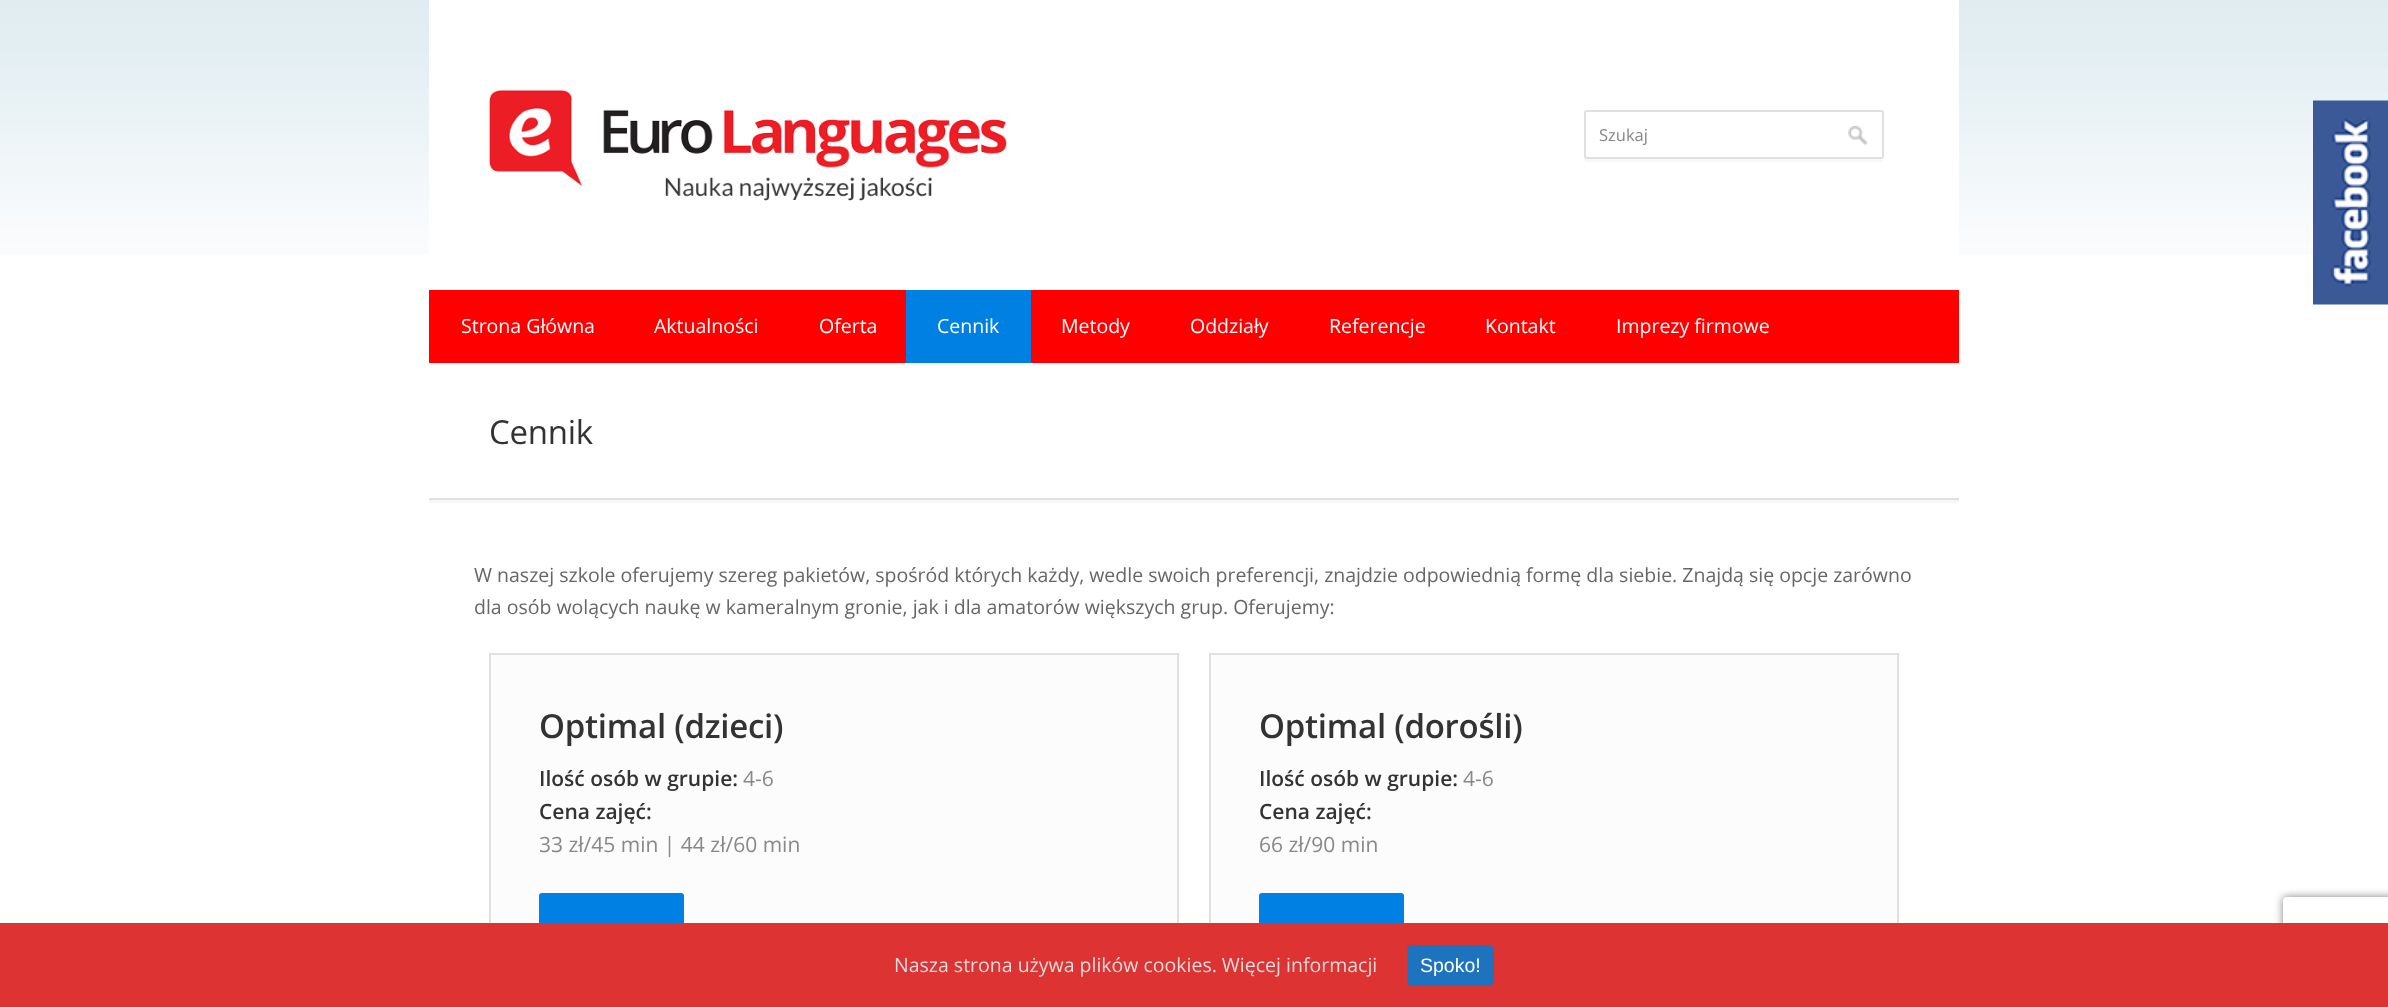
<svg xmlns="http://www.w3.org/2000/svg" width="2388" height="1007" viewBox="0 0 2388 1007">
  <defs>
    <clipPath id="clip1"><path d="M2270 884H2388V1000H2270ZM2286 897H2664C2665.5 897 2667 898.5 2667 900V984C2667 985.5 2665.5 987 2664 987H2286C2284.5 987 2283 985.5 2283 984V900C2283 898.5 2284.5 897 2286 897Z" clip-rule="evenodd"/></clipPath>
  </defs>
  <rect width="100%" height="100%" fill="#fff"/>
  <image x="0" y="0" width="2388" height="254" href="img/1.png"/>
  <path d="M429 0h1530v254H429z" fill="#fff"/>
  <image x="489" y="90" width="518" height="111" href="img/2.png"/>
  <path d="M1584 156C1584 158 1584 162 1587 162H1881C1884 162 1884 158 1884 156C1884 158 1883 159 1881 159H1587C1585 159 1584 158 1584 156Z" fill="#f7f7f7"/>
  <rect x="1585" y="111" width="298" height="47" rx="2" fill="none" stroke="#e0e0e0" stroke-width="2"/>
  <image x="1848" y="126" width="20" height="20" href="img/3.png"/>
  <path d="M429 290h1530v73H429z" fill="#f00"/>
  <path d="M906 290h125v73H906z" fill="#0080e2"/>
  <path d="M429 500h1530v3H429z" fill="#f7f7f7"/>
  <path d="M429 498h1530v2H429z" fill="#e0e0e0"/>
  <path d="M491 655h686v268H491z" fill="#fcfcfc"/>
  <path d="M490 654h688v346H490z" fill="none" stroke="#e0e0e0" stroke-width="2"/>
  <rect x="539" y="893" width="145" height="58" rx="3" fill="#0080e2"/>
  <path d="M1211 655h686v268H1211z" fill="#fcfcfc"/>
  <path d="M1210 654h688v346H1210z" fill="none" stroke="#e0e0e0" stroke-width="2"/>
  <rect x="1259" y="893" width="145" height="58" rx="3" fill="#0080e2"/>
  <image x="2313" y="100" width="75" height="205" href="img/4.png"/>
  <g clip-path="url(#clip1)">
    <rect x="2283" y="897" width="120" height="90" rx="3" fill="#808080" filter="blur(4px)"/>
  </g>
  <path d="M0 923h2388v84H0z" fill="#d33"/>
  <rect x="1407" y="945" width="87" height="41" rx="5" fill="#1e73be"/>
  <text x="1599" y="141" font-family="Open Sans" font-size="16.5" fill="#888">Szukaj</text>
  <g font-family="Open Sans" font-size="19.5" fill="#fff">
    <text x="461" y="333">Strona Główna</text>
    <text x="654" y="333">Aktualności</text>
    <text x="819" y="333">Oferta</text>
    <text x="937" y="333">Cennik</text>
    <text x="1061" y="333">Metody</text>
    <text x="1190" y="333">Oddziały</text>
    <text x="1329" y="333">Referencje</text>
    <text x="1485" y="333">Kontakt</text>
    <text x="1616" y="333">Imprezy firmowe</text>
  </g>
  <text x="489" y="444" font-family="Open Sans" font-size="33" letter-spacing="-0.25" fill="#333">Cennik</text>
  <g font-family="Open Sans" font-size="19.5" fill="#666">
    <text x="474" y="582">W naszej szkole oferujemy szereg pakietów, spośród których każdy, wedle swoich preferencji, znajdzie odpowiednią formę dla siebie. Znajdą się opcje zarówno</text>
    <text x="474" y="614">dla osób wolących naukę w kameralnym gronie, jak i dla amatorów większych grup. Oferujemy:</text>
  </g>
  <text x="539" y="738" font-family="Open Sans" font-size="33" font-weight="600" letter-spacing="-0.25" fill="#333">Optimal (dzieci)</text>
  <text x="539" y="786" font-family="Open Sans" font-size="21" font-weight="600" fill="#333">Ilość osób w grupie:</text>
  <text x="743" y="786" font-family="Open Sans" font-size="21" fill="#888">4-6</text>
  <text x="539" y="819" font-family="Open Sans" font-size="21" font-weight="600" fill="#333">Cena zajęć:</text>
  <text x="539" y="852" font-family="Open Sans" font-size="21" fill="#888">33 zł/45 min | 44 zł/60 min</text>
  <text x="1259" y="738" font-family="Open Sans" font-size="33" font-weight="600" letter-spacing="-0.25" fill="#333">Optimal (dorośli)</text>
  <text x="1259" y="786" font-family="Open Sans" font-size="21" font-weight="600" fill="#333">Ilość osób w grupie:</text>
  <text x="1463" y="786" font-family="Open Sans" font-size="21" fill="#888">4-6</text>
  <text x="1259" y="819" font-family="Open Sans" font-size="21" font-weight="600" fill="#333">Cena zajęć:</text>
  <text x="1259" y="852" font-family="Open Sans" font-size="21" fill="#888">66 zł/90 min</text>
  <text x="894" y="972" font-family="Open Sans" font-size="19.5" fill="#ddd">Nasza strona używa plików cookies. Więcej informacji</text>
  <text x="1420" y="972" font-family="Liberation Sans" font-size="19.5" fill="#fff">Spoko!</text>
</svg>
